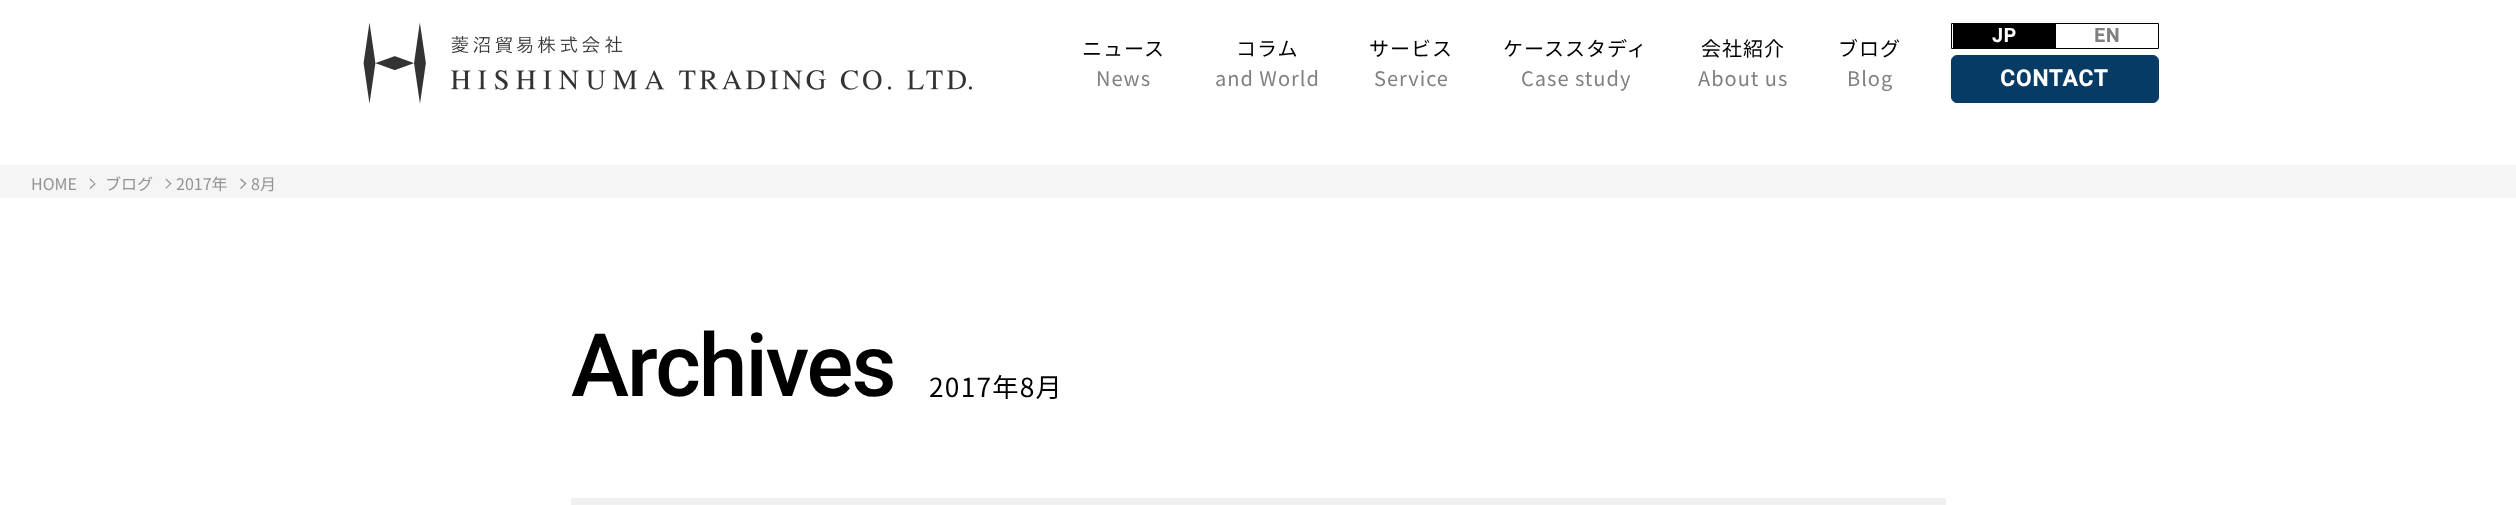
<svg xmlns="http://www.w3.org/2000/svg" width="2516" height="505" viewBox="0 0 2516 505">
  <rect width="100%" height="100%" fill="#fff"/>
  <image x="363" y="23" width="609" height="81" href="img/1.png"/>
  <path d="M1951.5 23.5h207v25H1951.5z" fill="none" stroke="#000"/>
  <path d="M1953 24h103v24H1953z" fill="#000"/>
  <rect x="1951.5" y="55.5" width="207" height="47" rx="5.5" fill="#063b66" stroke="#063b66"/>
  <path d="M0 165h2516v33H0z" fill="#f5f5f5"/>
  <path d="M90.5 178.5L95.5 184L95 184.5L89.5 179.5Z" fill="#939393"/>
  <path d="M95 183L95.5 184L90.5 189L89.5 188Z" fill="#939393"/>
  <path d="M166 178.5L171.5 183.5L170.5 184.5L165.5 179.5Z" fill="#939393"/>
  <path d="M170.5 183L171.5 183.5L166 189L165.5 188Z" fill="#939393"/>
  <path d="M241 178.5L246.5 183.5L245.5 184.5L240 179.5Z" fill="#939393"/>
  <path d="M245.5 183L246.5 183.5L241 189L240 188Z" fill="#939393"/>
  <path d="M571 498h1375v7H571z" fill="#f0f0f0"/>
  <text x="1082" y="56" font-family="Noto Sans JP" font-size="20" letter-spacing="1" fill="#000">ニュース</text>
  <text x="1096" y="86" font-family="Noto Sans JP" font-size="20" letter-spacing="1" fill="#808080">News</text>
  <text x="1236" y="56" font-family="Noto Sans JP" font-size="20" letter-spacing="1" fill="#000">コラム</text>
  <text x="1215" y="86" font-family="Noto Sans JP" font-size="20" letter-spacing="1" fill="#808080">and World</text>
  <text x="1369" y="56" font-family="Noto Sans JP" font-size="20" letter-spacing="1" fill="#000">サービス</text>
  <text x="1374" y="86" font-family="Noto Sans JP" font-size="20" letter-spacing="1" fill="#808080">Service</text>
  <text x="1503" y="56" font-family="Noto Sans JP" font-size="20" letter-spacing="1" fill="#000">ケーススタディ</text>
  <text x="1521" y="86" font-family="Noto Sans JP" font-size="20" letter-spacing="1" fill="#808080">Case study</text>
  <text x="1701" y="56" font-family="Noto Sans JP" font-size="20" letter-spacing="1" fill="#000">会社紹介</text>
  <text x="1698" y="86" font-family="Noto Sans JP" font-size="20" letter-spacing="1" fill="#808080">About us</text>
  <text x="1838" y="56" font-family="Noto Sans JP" font-size="20" letter-spacing="1" fill="#000">ブログ</text>
  <text x="1847" y="86" font-family="Noto Sans JP" font-size="20" letter-spacing="1" fill="#808080">Blog</text>
  <text x="1992" y="42" font-family="Roboto" font-size="19" font-weight="bold" letter-spacing="1" fill="#fff">JP</text>
  <text x="2094" y="42" font-family="Roboto" font-size="19" font-weight="bold" letter-spacing="1" fill="#808080">EN</text>
  <text x="2000" y="86" font-family="Roboto" font-size="22.5" font-weight="bold" letter-spacing="1" fill="#fff">CONTACT</text>
  <g font-family="Noto Sans JP" font-size="16" fill="#939393">
    <text x="31" y="190">HOME</text>
    <text x="105" y="190">ブログ</text>
    <text x="176" y="190">2017年</text>
    <text x="251" y="190">8月</text>
  </g>
  <text x="571" y="396" font-family="Roboto" font-size="87.5" font-weight="500" letter-spacing="-2" fill="#000">Archives</text>
  <text x="929" y="397" font-family="Noto Sans JP" font-size="26.25" letter-spacing="1.25" fill="#000">2017年8月</text>
</svg>
